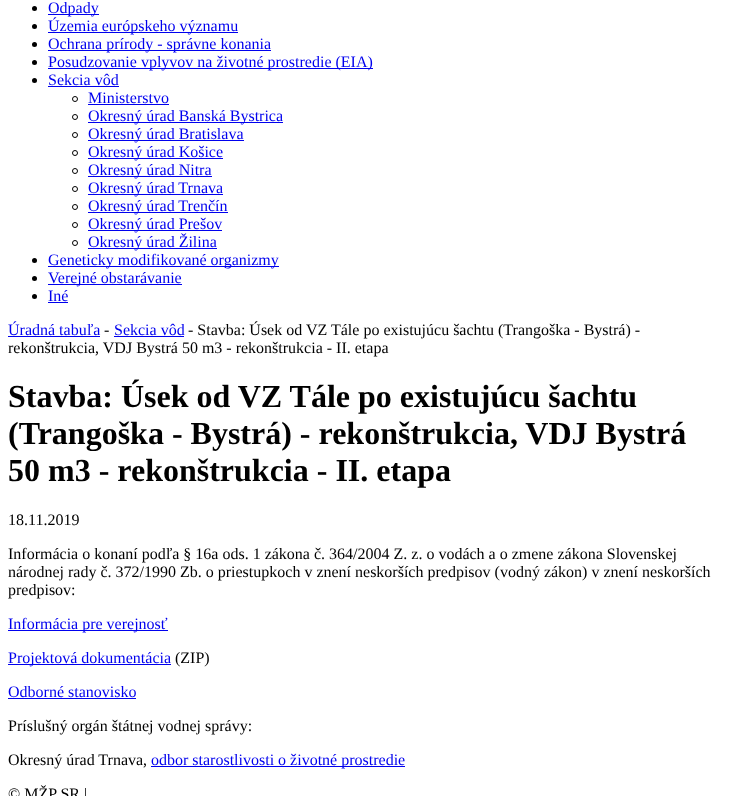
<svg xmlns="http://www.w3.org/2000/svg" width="733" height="796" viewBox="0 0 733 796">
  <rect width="100%" height="100%" fill="#fff"/>
  <circle cx="34.5" cy="8.5" r="2.5" fill="#000"/>
  <path d="M48 14h51v1H48z" fill="#00e"/>
  <circle cx="34.5" cy="26.5" r="2.5" fill="#000"/>
  <path d="M48 32h190v1H48z" fill="#00e"/>
  <circle cx="34.5" cy="44.5" r="2.5" fill="#000"/>
  <path d="M48 50h223v1H48z" fill="#00e"/>
  <circle cx="34.5" cy="62.5" r="2.5" fill="#000"/>
  <path d="M48 68h325v1H48z" fill="#00e"/>
  <circle cx="34.5" cy="80.5" r="2.5" fill="#000"/>
  <path d="M48 86h71v1H48z" fill="#00e"/>
  <circle cx="75" cy="99" r="2.5" fill="none" stroke="#000"/>
  <path d="M88 104h81v1H88z" fill="#00e"/>
  <circle cx="75" cy="117" r="2.5" fill="none" stroke="#000"/>
  <path d="M88 122h195v1H88z" fill="#00e"/>
  <circle cx="75" cy="135" r="2.5" fill="none" stroke="#000"/>
  <path d="M88 140h156v1H88z" fill="#00e"/>
  <circle cx="75" cy="153" r="2.5" fill="none" stroke="#000"/>
  <path d="M88 158h135v1H88z" fill="#00e"/>
  <circle cx="75" cy="171" r="2.5" fill="none" stroke="#000"/>
  <path d="M88 176h124v1H88z" fill="#00e"/>
  <circle cx="75" cy="189" r="2.5" fill="none" stroke="#000"/>
  <path d="M88 194h135v1H88z" fill="#00e"/>
  <circle cx="75" cy="207" r="2.5" fill="none" stroke="#000"/>
  <path d="M88 212h140v1H88z" fill="#00e"/>
  <circle cx="75" cy="225" r="2.5" fill="none" stroke="#000"/>
  <path d="M88 230h134v1H88z" fill="#00e"/>
  <circle cx="75" cy="243" r="2.5" fill="none" stroke="#000"/>
  <path d="M88 248h129v1H88z" fill="#00e"/>
  <circle cx="34.5" cy="260.5" r="2.5" fill="#000"/>
  <path d="M48 266h231v1H48z" fill="#00e"/>
  <circle cx="34.5" cy="278.5" r="2.5" fill="#000"/>
  <path d="M48 284h134v1H48z" fill="#00e"/>
  <circle cx="34.5" cy="296.5" r="2.5" fill="#000"/>
  <path d="M48 302h20v1H48z" fill="#00e"/>
  <path d="M8 336h92v1H8z" fill="#00e"/>
  <path d="M114 336h70v1H114z" fill="#00e"/>
  <path d="M8 630h160v1H8z" fill="#00e"/>
  <path d="M8 664h163v1H8z" fill="#00e"/>
  <path d="M8 698h128v1H8z" fill="#00e"/>
  <path d="M151 766h254v1H151z" fill="#00e"/>
  <g font-family="Liberation Serif" font-size="16" fill="#00e">
    <text x="48" y="13">Odpady</text>
    <text x="48" y="31">Územia európskeho významu</text>
    <text x="48" y="49">Ochrana prírody - správne konania</text>
    <text x="48" y="67">Posudzovanie vplyvov na životné prostredie (EIA)</text>
    <text x="48" y="85">Sekcia vôd</text>
    <text x="88" y="103">Ministerstvo</text>
    <text x="88" y="121">Okresný úrad Banská Bystrica</text>
    <text x="88" y="139">Okresný úrad Bratislava</text>
    <text x="88" y="157">Okresný úrad Košice</text>
    <text x="88" y="175">Okresný úrad Nitra</text>
    <text x="88" y="193">Okresný úrad Trnava</text>
    <text x="88" y="211">Okresný úrad Trenčín</text>
    <text x="88" y="229">Okresný úrad Prešov</text>
    <text x="88" y="247">Okresný úrad Žilina</text>
    <text x="48" y="265">Geneticky modifikované organizmy</text>
    <text x="48" y="283">Verejné obstarávanie</text>
    <text x="48" y="301">Iné</text>
    <text x="8" y="335">Úradná tabuľa</text>
  </g>
  <text x="104" y="335" font-family="Liberation Serif" font-size="16" fill="#000">-</text>
  <text x="114" y="335" font-family="Liberation Serif" font-size="16" fill="#00e">Sekcia vôd</text>
  <g font-family="Liberation Serif" font-size="16" fill="#000">
    <text x="188" y="335">- Stavba: Úsek od VZ Tále po existujúcu šachtu (Trangoška - Bystrá) -</text>
    <text x="8" y="353">rekonštrukcia, VDJ Bystrá 50 m3 - rekonštrukcia - II. etapa</text>
  </g>
  <g font-family="Liberation Serif" font-size="32" font-weight="bold" fill="#000">
    <text x="8" y="407">Stavba: Úsek od VZ Tále po existujúcu šachtu</text>
    <text x="8" y="444">(Trangoška - Bystrá) - rekonštrukcia, VDJ Bystrá</text>
    <text x="8" y="481">50 m3 - rekonštrukcia - II. etapa</text>
  </g>
  <g font-family="Liberation Serif" font-size="16" fill="#000">
    <text x="8" y="525">18.11.2019</text>
    <text x="8" y="559">Informácia o konaní podľa § 16a ods. 1 zákona č. 364/2004 Z. z. o vodách a o zmene zákona Slovenskej</text>
    <text x="8" y="577">národnej rady č. 372/1990 Zb. o priestupkoch v znení neskorších predpisov (vodný zákon) v znení neskorších</text>
    <text x="8" y="595">predpisov:</text>
  </g>
  <g font-family="Liberation Serif" font-size="16" fill="#00e">
    <text x="8" y="629">Informácia pre verejnosť</text>
    <text x="8" y="663">Projektová dokumentácia</text>
  </g>
  <text x="175" y="663" font-family="Liberation Serif" font-size="16" fill="#000">(ZIP)</text>
  <text x="8" y="697" font-family="Liberation Serif" font-size="16" fill="#00e">Odborné stanovisko</text>
  <g font-family="Liberation Serif" font-size="16" fill="#000">
    <text x="8" y="731">Príslušný orgán štátnej vodnej správy:</text>
    <text x="8" y="765">Okresný úrad Trnava,</text>
  </g>
  <text x="151" y="765" font-family="Liberation Serif" font-size="16" fill="#00e">odbor starostlivosti o životné prostredie</text>
  <text x="8" y="799" font-family="Liberation Serif" font-size="16" fill="#000">© MŽP SR |</text>
</svg>
